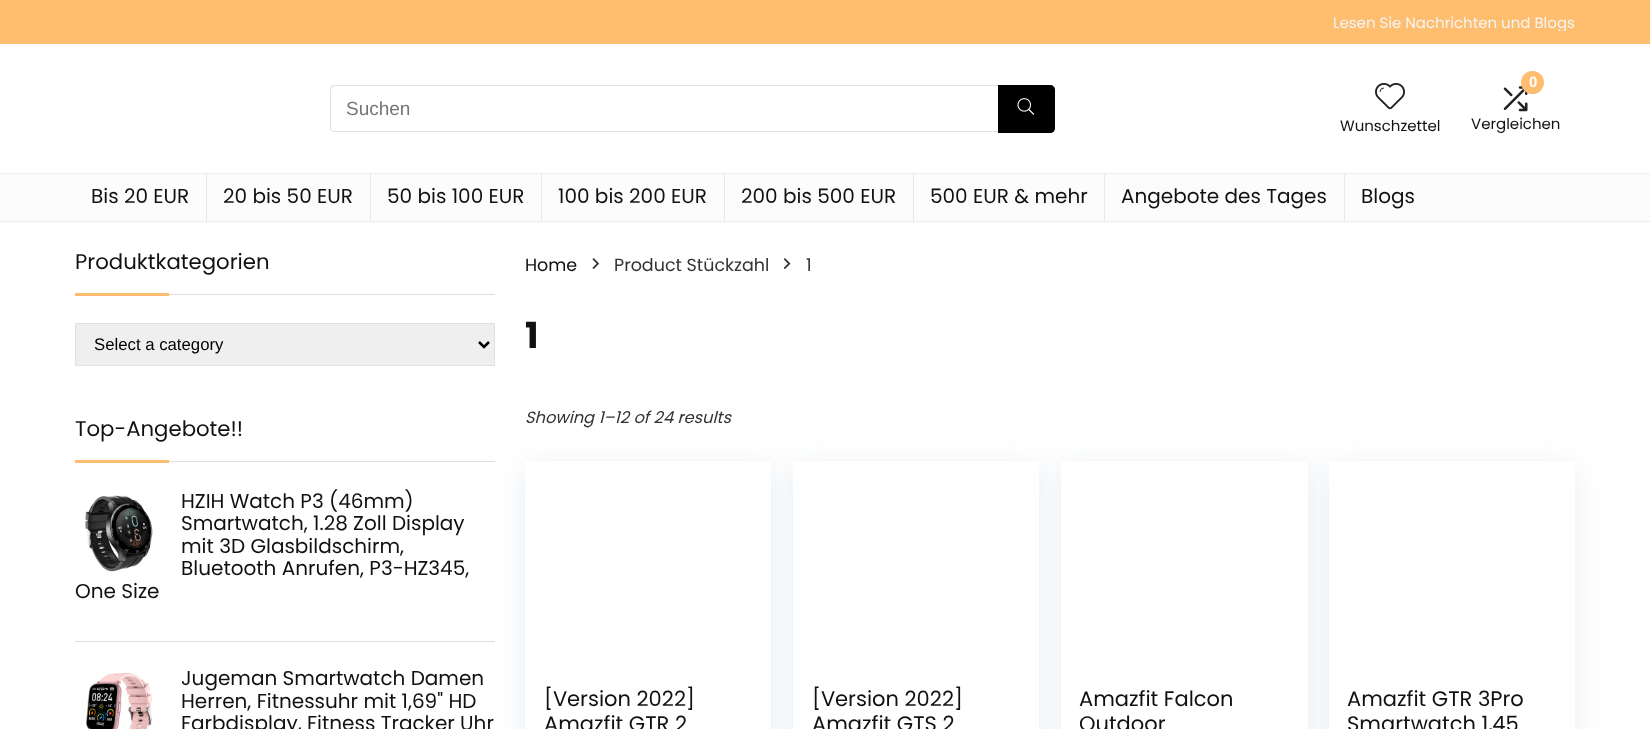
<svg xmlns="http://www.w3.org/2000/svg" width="1650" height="729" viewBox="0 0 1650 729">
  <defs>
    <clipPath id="clip1"><path d="M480 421H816V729H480ZM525 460H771V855H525Z" clip-rule="evenodd"/></clipPath>
    <clipPath id="clip2"><path d="M1334 13h241v18H1334z"/></clipPath>
  </defs>
  <rect width="100%" height="100%" fill="#fff"/>
  <path d="M0 0h1650v44H0z" fill="#ffbe6f"/>
  <path d="M335 85H998V132H335C332 132 330 130 330 128V90C330 87 332 85 335 85ZM335 86H998V131H335C333 131 331 130 331 128V90C331 88 333 86 335 86Z" fill="#e1e1e1" fill-rule="evenodd"/>
  <path d="M998 85H1050C1053 85 1055 87 1055 90V128C1055 131 1053 133 1050 133H998Z" fill="#000"/>
  <image x="1017" y="98" width="18" height="17" href="img/1.png"/>
  <image x="1375" y="83" width="30" height="27" href="img/2.png"/>
  <image x="1503" y="86" width="25" height="26" href="img/3.png"/>
  <circle cx="1532.5" cy="82.5" r="11.5" fill="#ffbe6f"/>
  <path d="M0 174h1650v49H0z" fill="#fcfcfc"/>
  <path d="M0 173h1650v1H0z" fill="#eee"/>
  <path d="M0 221h1650v1H0z" fill="#eee"/>
  <path d="M206 174h1v47H206z" fill="#e8e8e8"/>
  <path d="M370 174h1v47H370z" fill="#e8e8e8"/>
  <path d="M541 174h1v47H541z" fill="#e8e8e8"/>
  <path d="M724 174h1v47H724z" fill="#e8e8e8"/>
  <path d="M913 174h1v47H913z" fill="#e8e8e8"/>
  <path d="M1104 174h1v47H1104z" fill="#e8e8e8"/>
  <path d="M1344 174h1v47H1344z" fill="#e8e8e8"/>
  <path d="M169 294h326v1H169z" fill="#ddd"/>
  <path d="M75 293h94v3H75z" fill="#ffbe6f"/>
  <path d="M75.5 323.5h419v42H75.5z" fill="#efefef" stroke="#e1e1e1"/>
  <path d="M479 342L484 347L489 342" fill="none" stroke="#000" stroke-width="2.5"/>
  <path d="M169 461h326v1H169z" fill="#ddd"/>
  <path d="M75 460h94v3H75z" fill="#ffbe6f"/>
  <path d="M75 641h420v1H75z" fill="#ddd"/>
  <image x="85" y="495" width="68" height="77" href="img/4.png"/>
  <image x="86" y="672" width="67" height="57" href="img/5.png"/>
  <image x="592" y="258" width="7" height="11" href="img/6.png"/>
  <image x="783" y="258" width="8" height="11" href="img/7.png"/>
  <g clip-path="url(#clip1)">
    <path d="M525 466h246v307H525z" fill="#bccfdb59" filter="blur(14.5px)"/>
  </g>
  <path d="M525 460h246v1H525z" fill="#f8f8f8"/>
  <path d="M793 466h246v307H793z" fill="#bccfdb59" filter="blur(14.5px)"/>
  <path d="M793 461h246v268H793z" fill="#fff"/>
  <path d="M793 460h246v1H793z" fill="#f8f8f8"/>
  <path d="M1061 466h247v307H1061z" fill="#bccfdb59" filter="blur(14.5px)"/>
  <path d="M1061 461h247v268H1061z" fill="#fff"/>
  <path d="M1061 460h247v1H1061z" fill="#f8f8f8"/>
  <path d="M1329 466h246v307H1329z" fill="#bccfdb59" filter="blur(14.5px)"/>
  <path d="M1329 461h246v268H1329z" fill="#fff"/>
  <path d="M1329 460h246v1H1329z" fill="#f8f8f8"/>
  <g clip-path="url(#clip2)">
    <text x="1333" y="28" font-family="Poppins" font-size="15" fill="#f4f4f4">Lesen Sie Nachrichten und Blogs</text>
  </g>
  <text x="346" y="115" font-family="Liberation Sans" font-size="19" fill="#757575">Suchen</text>
  <text x="1340" y="131" font-family="Poppins" font-size="15" fill="#111">Wunschzettel</text>
  <text x="1529" y="87" font-family="Liberation Sans" font-size="15" font-weight="bold" fill="#fff">0</text>
  <text x="1471" y="129" font-family="Poppins" font-size="15" fill="#111">Vergleichen</text>
  <g font-family="Poppins" font-size="20" fill="#111">
    <text x="91" y="203">Bis 20 EUR</text>
    <text x="223" y="203">20 bis 50 EUR</text>
    <text x="387" y="203">50 bis 100 EUR</text>
    <text x="558" y="203">100 bis 200 EUR</text>
    <text x="741" y="203">200 bis 500 EUR</text>
    <text x="930" y="203">500 EUR &amp; mehr</text>
    <text x="1121" y="203">Angebote des Tages</text>
    <text x="1361" y="203">Blogs</text>
  </g>
  <text x="75" y="269" font-family="Poppins" font-size="21.25" fill="#111">Produktkategorien</text>
  <text x="94" y="350" font-family="Liberation Sans" font-size="16.75" fill="#000">Select a category</text>
  <text x="75" y="436" font-family="Poppins" font-size="21.25" fill="#111">Top-Angebote!!</text>
  <g font-family="Poppins" font-size="20" fill="#111">
    <text x="181" y="508">HZIH Watch P3 (46mm)</text>
    <text x="181" y="530">Smartwatch, 1.28 Zoll Display</text>
    <text x="181" y="553">mit 3D Glasbildschirm,</text>
    <text x="181" y="575">Bluetooth Anrufen, P3-HZ345,</text>
    <text x="75" y="598">One Size</text>
    <text x="181" y="685">Jugeman Smartwatch Damen</text>
    <text x="181" y="708">Herren, Fitnessuhr mit 1,69" HD</text>
    <text x="181" y="730">Farbdisplay, Fitness Tracker Uhr</text>
  </g>
  <text x="525" y="271" font-family="Poppins" font-size="17.5" fill="#111">Home</text>
  <g font-family="Poppins" font-size="17.5" fill="#333">
    <text x="614" y="271">Product Stückzahl</text>
    <text x="806" y="271">1</text>
  </g>
  <text x="525" y="348" font-family="Poppins" font-size="36" font-weight="bold" fill="#111">1</text>
  <text x="525" y="423" font-family="Poppins" font-size="16.25" font-style="italic" fill="#333">Showing 1–12 of 24 results</text>
  <g font-family="Poppins" font-size="21" fill="#111">
    <text x="544" y="706">[Version 2022]</text>
    <text x="544" y="731">Amazfit GTR 2</text>
    <text x="812" y="706">[Version 2022]</text>
    <text x="812" y="731">Amazfit GTS 2</text>
    <text x="1079" y="706">Amazfit Falcon</text>
    <text x="1079" y="731">Outdoor</text>
    <text x="1347" y="706">Amazfit GTR 3Pro</text>
    <text x="1347" y="731">Smartwatch 1,45</text>
  </g>
</svg>
